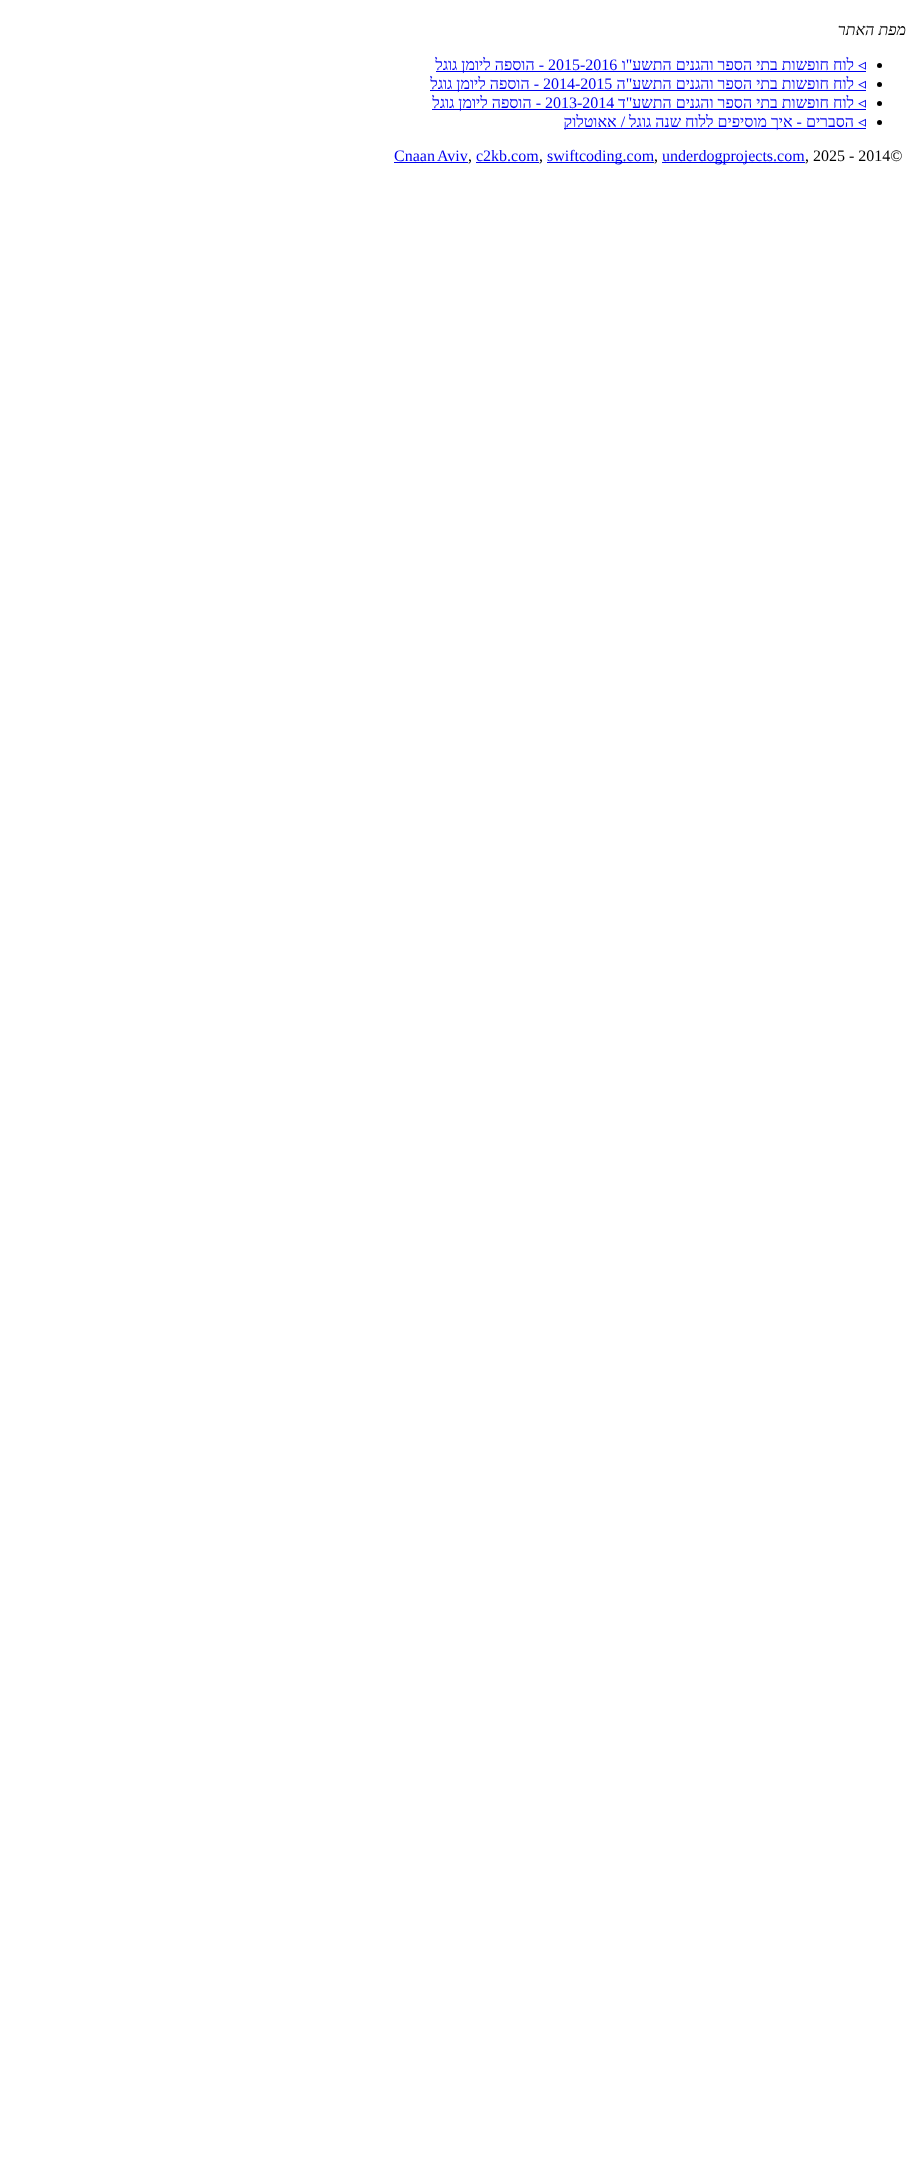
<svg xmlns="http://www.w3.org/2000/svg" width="914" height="2182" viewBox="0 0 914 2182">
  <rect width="100%" height="100%" fill="#fff"/>
  <circle cx="879.5" cy="65.5" r="2.5" fill="#000"/>
  <path d="M436 71h430v1H436z" fill="#00e"/>
  <circle cx="879.5" cy="84.5" r="2.5" fill="#000"/>
  <path d="M430 90h436v1H430z" fill="#00e"/>
  <circle cx="879.5" cy="103.5" r="2.5" fill="#000"/>
  <path d="M432 109h434v1H432z" fill="#00e"/>
  <circle cx="879.5" cy="122.5" r="2.5" fill="#000"/>
  <path d="M564 128h302v1H564z" fill="#00e"/>
  <path d="M662 162h143v1H662z" fill="#00e"/>
  <path d="M547 162h107v1H547z" fill="#00e"/>
  <path d="M476 162h63v1H476z" fill="#00e"/>
  <path d="M394 162h74v1H394z" fill="#00e"/>
  <text x="906" y="35" font-family="Liberation Serif" font-size="16" font-style="italic" direction="rtl" fill="#000">מפת האתר</text>
  <text x="866" y="70" font-family="DejaVu Sans" font-size="16" direction="rtl" fill="#00e">◃</text>
  <text x="854" y="70" font-family="Liberation Serif" font-size="16" direction="rtl" fill="#00e">לוח חופשות בתי הספר והגנים התשע"ו</text>
  <text x="548" y="70" font-family="Liberation Serif" font-size="16" fill="#00e">2015-2016</text>
  <text x="544" y="70" font-family="Liberation Serif" font-size="16" direction="rtl" fill="#00e">- הוספה ליומן גוגל</text>
  <text x="866" y="89" font-family="DejaVu Sans" font-size="16" direction="rtl" fill="#00e">◃</text>
  <text x="854" y="89" font-family="Liberation Serif" font-size="16" direction="rtl" fill="#00e">לוח חופשות בתי הספר והגנים התשע"ה</text>
  <text x="543" y="89" font-family="Liberation Serif" font-size="16" fill="#00e">2014-2015</text>
  <text x="539" y="89" font-family="Liberation Serif" font-size="16" direction="rtl" fill="#00e">- הוספה ליומן גוגל</text>
  <text x="866" y="108" font-family="DejaVu Sans" font-size="16" direction="rtl" fill="#00e">◃</text>
  <text x="854" y="108" font-family="Liberation Serif" font-size="16" direction="rtl" fill="#00e">לוח חופשות בתי הספר והגנים התשע"ד</text>
  <text x="545" y="108" font-family="Liberation Serif" font-size="16" fill="#00e">2013-2014</text>
  <text x="541" y="108" font-family="Liberation Serif" font-size="16" direction="rtl" fill="#00e">- הוספה ליומן גוגל</text>
  <text x="866" y="127" font-family="DejaVu Sans" font-size="16" direction="rtl" fill="#00e">◃</text>
  <text x="854" y="127" font-family="Liberation Serif" font-size="16" direction="rtl" fill="#00e">הסברים - איך מוסיפים ללוח שנה גוגל / אאוטלוק</text>
  <text x="805" y="161" font-family="Liberation Serif" font-size="16" fill="#000">, 2025 - 2014©</text>
  <text x="662" y="161" font-family="Liberation Serif" font-size="16" fill="#00e">underdogprojects.com</text>
  <text x="654" y="161" font-family="Liberation Serif" font-size="16" fill="#000">,</text>
  <text x="547" y="161" font-family="Liberation Serif" font-size="16" fill="#00e">swiftcoding.com</text>
  <text x="539" y="161" font-family="Liberation Serif" font-size="16" fill="#000">,</text>
  <g font-family="Liberation Serif" font-size="16" fill="#00e">
    <text x="476" y="161">c2kb.com</text>
    <text x="394" y="161" word-spacing="-1">Cnaan Aviv</text>
  </g>
  <text x="468" y="161" font-family="Liberation Serif" font-size="16" fill="#000">,</text>
</svg>
